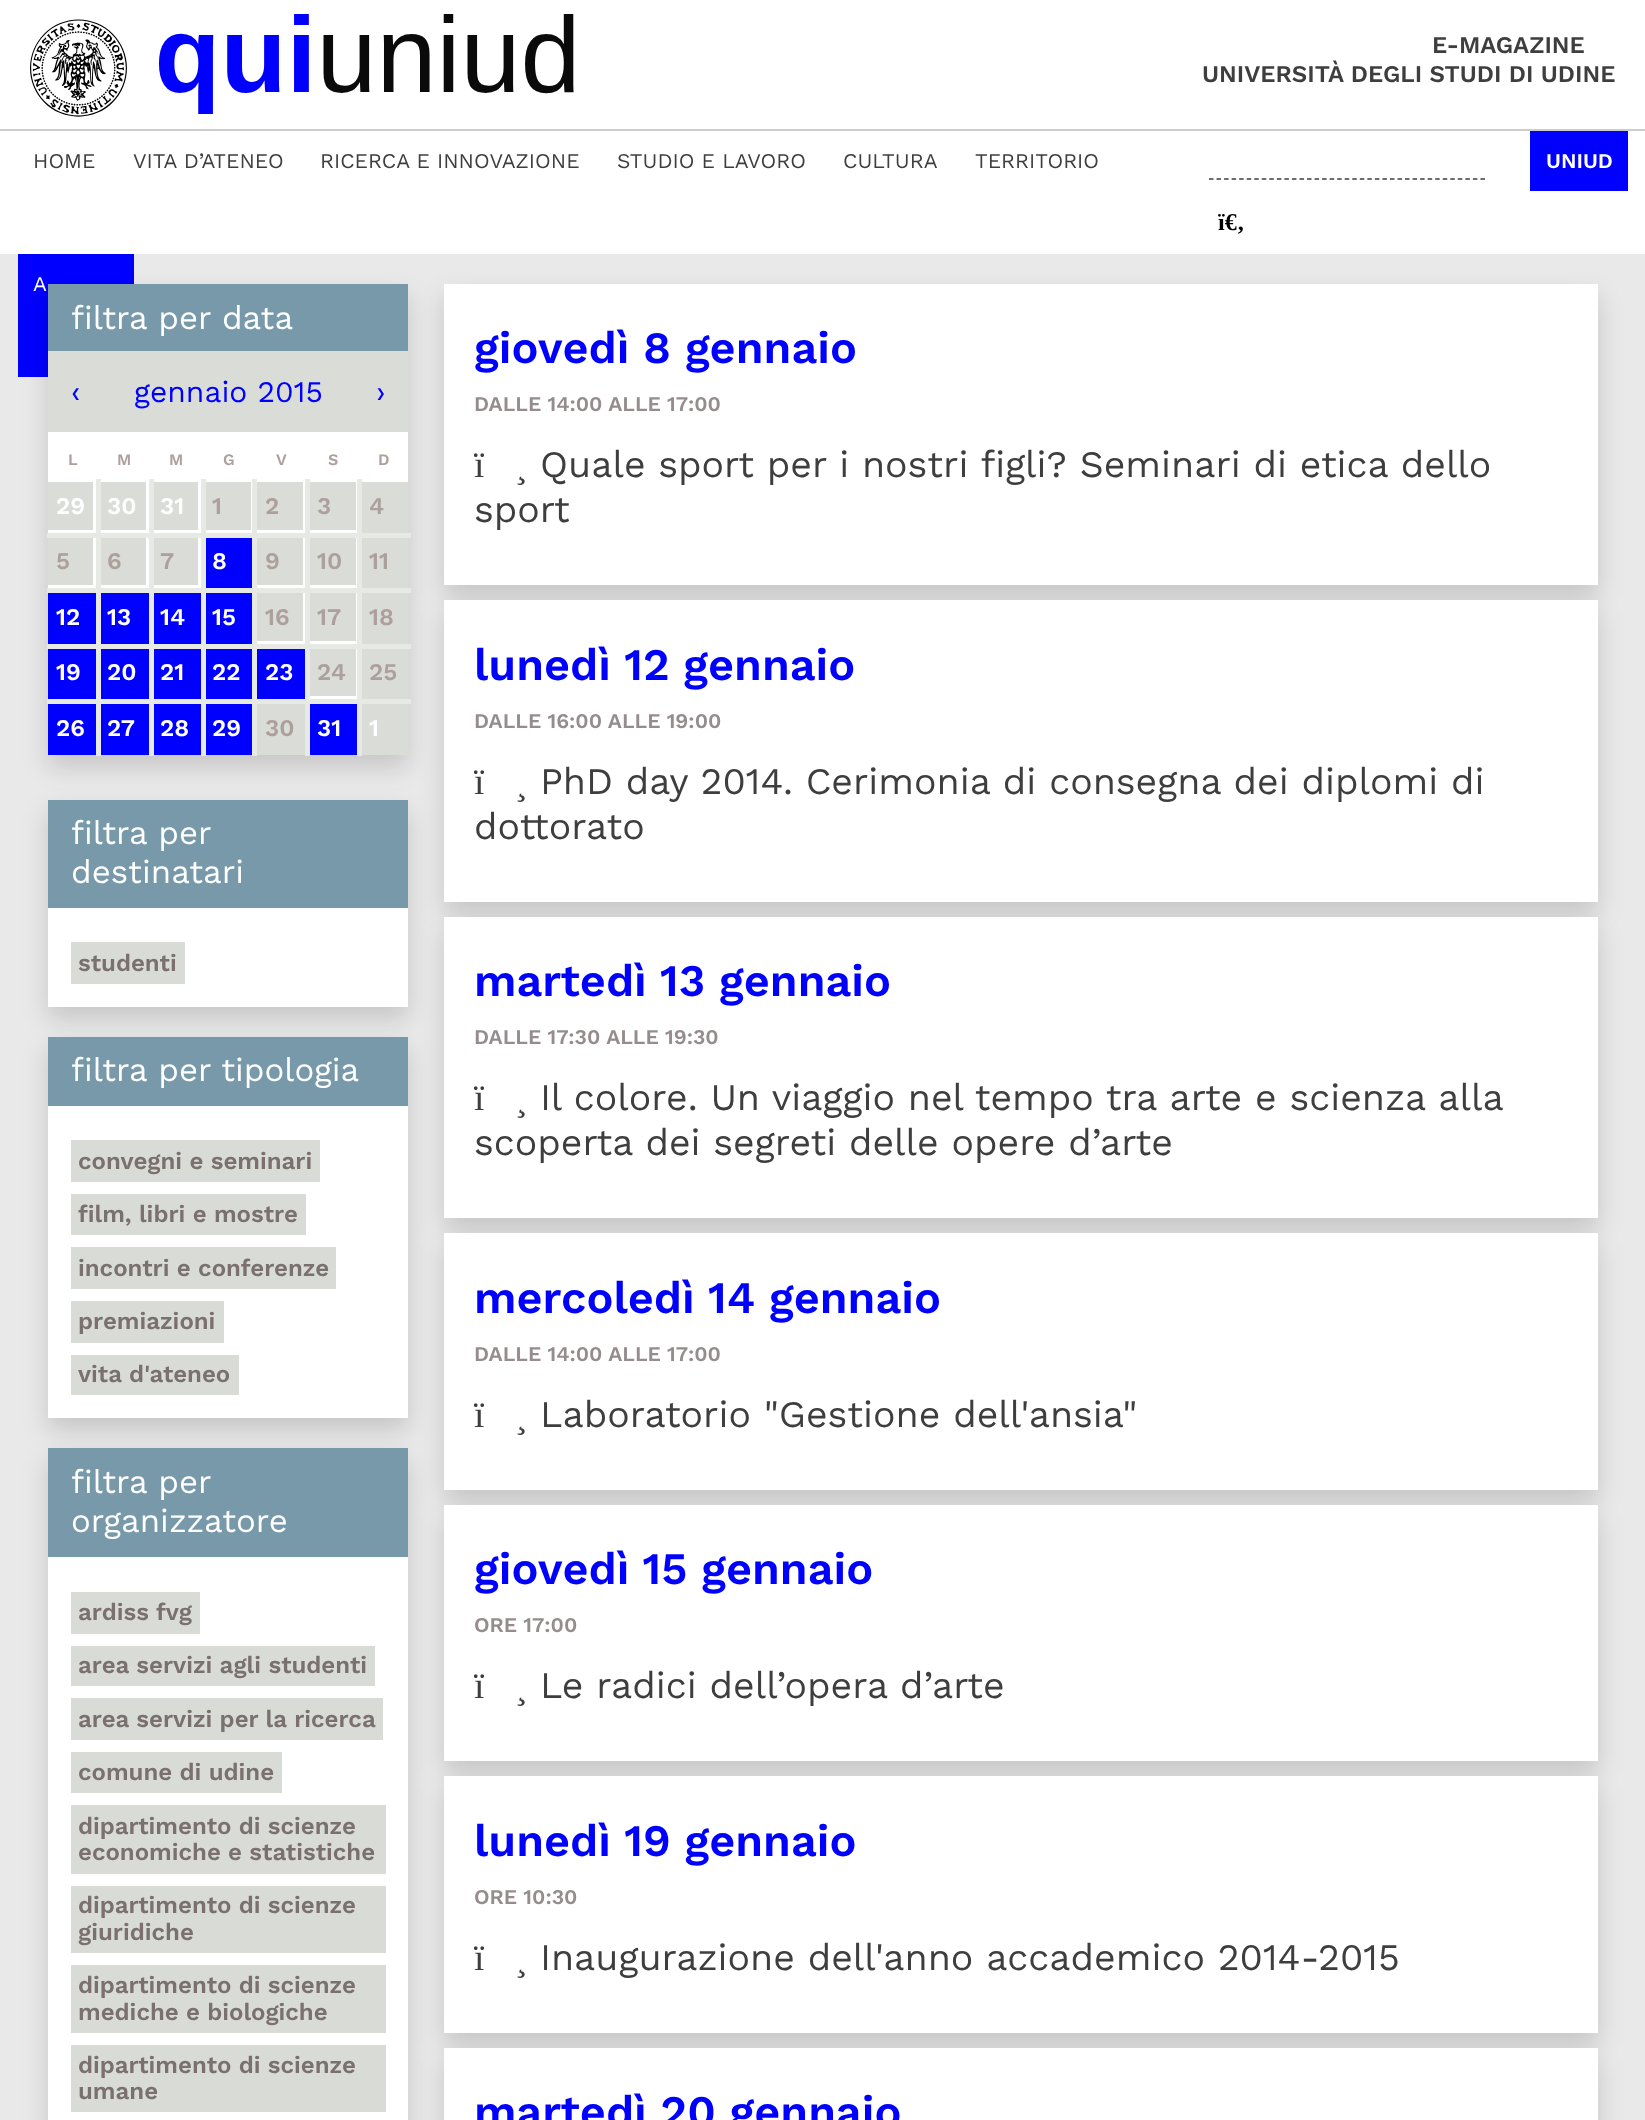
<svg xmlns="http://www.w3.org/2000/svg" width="1645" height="2120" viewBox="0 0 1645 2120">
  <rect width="100%" height="100%" fill="#fff"/>
  <image x="30" y="14" width="544" height="103" href="img/1.png"/>
  <path d="M0 129h1645v2H0z" fill="#ccc"/>
  <path d="M0 254h1645v1866H0z" fill="#e9e9e9"/>
  <path d="M18 254h116v123H18z" fill="#00f"/>
  <path d="M1530 131h98v60H1530z" fill="#00f"/>
  <path d="M1209 179H1485" fill="none" stroke="#3e3e3e" stroke-width="1.5" stroke-dasharray="4.5 3.04"/>
  <path d="M48 296h360v471H48z" fill="#00000026" filter="blur(12px)"/>
  <path d="M48 432h360v267H48z" fill="#fff"/>
  <path d="M48 351h360v81H48z" fill="#daddd7"/>
  <path d="M362 482h46v51H362z" fill="#daddd7"/>
  <path d="M357 699h5v57H357z" fill="#e7e9e4"/>
  <path d="M357 699h54v5H357z" fill="#e7e9e4"/>
  <path d="M357 644h5v60H357z" fill="#e7e9e4"/>
  <path d="M357 644h54v5H357z" fill="#e7e9e4"/>
  <path d="M357 588h5v60H357z" fill="#e7e9e4"/>
  <path d="M357 588h54v5H357z" fill="#e7e9e4"/>
  <path d="M357 533h5v60H357z" fill="#e7e9e4"/>
  <path d="M357 533h54v5H357z" fill="#e7e9e4"/>
  <path d="M362 538h46v50H362z" fill="#daddd7"/>
  <path d="M362 593h46v51H362z" fill="#daddd7"/>
  <path d="M444 296h1154v301H444z" fill="#00000026" filter="blur(12px)"/>
  <path d="M48 284h360v67H48z" fill="#79a"/>
  <path d="M48 482h45v48H48z" fill="#daddd7"/>
  <path d="M357 479h5v58H357z" fill="#e7e9e4"/>
  <path d="M305 699h5v57H305z" fill="#e7e9e4"/>
  <path d="M305 699h57v5H305z" fill="#e7e9e4"/>
  <path d="M305 644h5v60H305z" fill="#e7e9e4"/>
  <path d="M305 644h57v5H305z" fill="#e7e9e4"/>
  <path d="M305 588h5v60H305z" fill="#e7e9e4"/>
  <path d="M305 588h57v5H305z" fill="#e7e9e4"/>
  <path d="M305 533h5v60H305z" fill="#e7e9e4"/>
  <path d="M305 533h57v5H305z" fill="#e7e9e4"/>
  <path d="M305 479h5v58H305z" fill="#e7e9e4"/>
  <path d="M252 699h5v57H252z" fill="#e7e9e4"/>
  <path d="M252 699h57v5H252z" fill="#e7e9e4"/>
  <path d="M252 644h5v60H252z" fill="#e7e9e4"/>
  <path d="M252 644h57v5H252z" fill="#e7e9e4"/>
  <path d="M252 588h5v60H252z" fill="#e7e9e4"/>
  <path d="M252 588h57v5H252z" fill="#e7e9e4"/>
  <path d="M252 533h5v60H252z" fill="#e7e9e4"/>
  <path d="M252 533h57v5H252z" fill="#e7e9e4"/>
  <path d="M252 479h5v58H252z" fill="#e7e9e4"/>
  <path d="M201 699h5v57H201z" fill="#e7e9e4"/>
  <path d="M201 699h56v5H201z" fill="#e7e9e4"/>
  <path d="M201 644h5v60H201z" fill="#e7e9e4"/>
  <path d="M201 644h56v5H201z" fill="#e7e9e4"/>
  <path d="M201 588h5v60H201z" fill="#e7e9e4"/>
  <path d="M201 588h56v5H201z" fill="#e7e9e4"/>
  <path d="M201 533h5v60H201z" fill="#e7e9e4"/>
  <path d="M201 533h56v5H201z" fill="#e7e9e4"/>
  <path d="M201 479h5v58H201z" fill="#e7e9e4"/>
  <path d="M149 699h5v57H149z" fill="#e7e9e4"/>
  <path d="M149 699h57v5H149z" fill="#e7e9e4"/>
  <path d="M149 644h5v60H149z" fill="#e7e9e4"/>
  <path d="M149 644h57v5H149z" fill="#e7e9e4"/>
  <path d="M149 588h5v60H149z" fill="#e7e9e4"/>
  <path d="M149 588h57v5H149z" fill="#e7e9e4"/>
  <path d="M149 533h5v60H149z" fill="#e7e9e4"/>
  <path d="M149 533h57v5H149z" fill="#e7e9e4"/>
  <path d="M149 479h5v58H149z" fill="#e7e9e4"/>
  <path d="M96 699h5v57H96z" fill="#e7e9e4"/>
  <path d="M96 699h57v5H96z" fill="#e7e9e4"/>
  <path d="M96 644h5v60H96z" fill="#e7e9e4"/>
  <path d="M96 644h57v5H96z" fill="#e7e9e4"/>
  <path d="M96 588h5v60H96z" fill="#e7e9e4"/>
  <path d="M96 588h57v5H96z" fill="#e7e9e4"/>
  <path d="M96 533h5v60H96z" fill="#e7e9e4"/>
  <path d="M96 533h57v5H96z" fill="#e7e9e4"/>
  <path d="M96 479h5v58H96z" fill="#e7e9e4"/>
  <path d="M47 533h54v5H47z" fill="#e7e9e4"/>
  <path d="M101 482h45v48H101z" fill="#daddd7"/>
  <path d="M154 482h44v48H154z" fill="#daddd7"/>
  <path d="M206 482h45v48H206z" fill="#daddd7"/>
  <path d="M257 482h46v48H257z" fill="#daddd7"/>
  <path d="M310 482h46v48H310z" fill="#daddd7"/>
  <path d="M48 538h45v47H48z" fill="#daddd7"/>
  <path d="M47 588h54v5H47z" fill="#e7e9e4"/>
  <path d="M101 538h45v47H101z" fill="#daddd7"/>
  <path d="M154 538h44v47H154z" fill="#daddd7"/>
  <path d="M206 538h46v50H206z" fill="#00f"/>
  <path d="M257 538h46v47H257z" fill="#daddd7"/>
  <path d="M310 538h46v47H310z" fill="#daddd7"/>
  <path d="M47 644h54v5H47z" fill="#e7e9e4"/>
  <path d="M48 593h48v51H48z" fill="#00f"/>
  <path d="M101 593h48v51H101z" fill="#00f"/>
  <path d="M154 593h47v51H154z" fill="#00f"/>
  <path d="M206 593h46v51H206z" fill="#00f"/>
  <path d="M257 593h46v48H257z" fill="#daddd7"/>
  <path d="M310 593h46v48H310z" fill="#daddd7"/>
  <path d="M47 699h54v5H47z" fill="#e7e9e4"/>
  <path d="M48 649h48v50H48z" fill="#00f"/>
  <path d="M101 649h48v50H101z" fill="#00f"/>
  <path d="M154 649h47v50H154z" fill="#00f"/>
  <path d="M206 649h46v50H206z" fill="#00f"/>
  <path d="M257 649h48v50H257z" fill="#00f"/>
  <path d="M310 649h46v47H310z" fill="#daddd7"/>
  <path d="M362 649h46v50H362z" fill="#daddd7"/>
  <path d="M48 704h48v51H48z" fill="#00f"/>
  <path d="M101 704h48v51H101z" fill="#00f"/>
  <path d="M154 704h47v51H154z" fill="#00f"/>
  <path d="M206 704h46v51H206z" fill="#00f"/>
  <path d="M257 704h48v51H257z" fill="#daddd7"/>
  <path d="M310 704h47v51H310z" fill="#00f"/>
  <path d="M362 704h46v51H362z" fill="#daddd7"/>
  <path d="M48 812h360v207H48z" fill="#00000026" filter="blur(12px)"/>
  <path d="M48 908h360v99H48z" fill="#fff"/>
  <path d="M48 800h360v108H48z" fill="#79a"/>
  <path d="M71 942h114v42H71z" fill="#d9dcd6"/>
  <path d="M48 1049h360v381H48z" fill="#00000026" filter="blur(12px)"/>
  <path d="M48 1106h360v312H48z" fill="#fff"/>
  <path d="M48 1037h360v69H48z" fill="#79a"/>
  <path d="M71 1140h249v42H71z" fill="#d9dcd6"/>
  <path d="M71 1194h235v41H71z" fill="#d9dcd6"/>
  <path d="M71 1247h265v42H71z" fill="#d9dcd6"/>
  <path d="M71 1301h153v42H71z" fill="#d9dcd6"/>
  <path d="M71 1355h168v40H71z" fill="#d9dcd6"/>
  <path d="M48 1460h360v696H48z" fill="#00000026" filter="blur(12px)"/>
  <path d="M48 1557h360v563H48z" fill="#fff"/>
  <path d="M48 1448h360v109H48z" fill="#79a"/>
  <path d="M71 1592h129v42H71z" fill="#d9dcd6"/>
  <path d="M71 1646h304v40H71z" fill="#d9dcd6"/>
  <path d="M71 1698h312v42H71z" fill="#d9dcd6"/>
  <path d="M71 1752h211v41H71z" fill="#d9dcd6"/>
  <path d="M71 1805h315v69H71z" fill="#d9dcd6"/>
  <path d="M71 1886h315v67H71z" fill="#d9dcd6"/>
  <path d="M71 1965h315v68H71z" fill="#d9dcd6"/>
  <path d="M71 2045h315v67H71z" fill="#d9dcd6"/>
  <path d="M444 284h1154v301H444z" fill="#fff"/>
  <path d="M444 612h1154v302H444z" fill="#00000026" filter="blur(12px)"/>
  <path d="M444 600h1154v302H444z" fill="#fff"/>
  <path d="M444 929h1154v301H444z" fill="#00000026" filter="blur(12px)"/>
  <path d="M444 917h1154v301H444z" fill="#fff"/>
  <path d="M444 1245h1154v257H444z" fill="#00000026" filter="blur(12px)"/>
  <path d="M444 1233h1154v257H444z" fill="#fff"/>
  <path d="M444 1517h1154v256H444z" fill="#00000026" filter="blur(12px)"/>
  <path d="M444 1505h1154v256H444z" fill="#fff"/>
  <path d="M444 1788h1154v257H444z" fill="#00000026" filter="blur(12px)"/>
  <path d="M444 1776h1154v257H444z" fill="#fff"/>
  <path d="M444 2060h1154v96H444z" fill="#00000026" filter="blur(12px)"/>
  <path d="M444 2048h1154v72H444z" fill="#fff"/>
  <g font-family="Work Sans" font-size="24" font-weight="600" fill="#3e3e3e">
    <text x="1432" y="53">E-MAGAZINE</text>
    <text x="1202" y="82">UNIVERSITÀ DEGLI STUDI DI UDINE</text>
  </g>
  <g font-family="Work Sans" font-size="21" fill="#3e3e3e">
    <text x="33" y="168">HOME</text>
    <text x="133" y="168">VITA D’ATENEO</text>
    <text x="320" y="168">RICERCA E INNOVAZIONE</text>
    <text x="617" y="168">STUDIO E LAVORO</text>
    <text x="843" y="168">CULTURA</text>
    <text x="975" y="168">TERRITORIO</text>
  </g>
  <text x="33" y="291" font-family="Work Sans" font-size="21" fill="#fff">A</text>
  <text x="1546" y="168" font-family="Work Sans" font-size="21" font-weight="600" fill="#fff">UNIUD</text>
  <text x="1218" y="230" font-family="Liberation Serif" font-size="24" font-weight="bold" fill="#000">ï€‚</text>
  <text x="71" y="329" font-family="Work Sans" font-size="33" fill="#fff">filtra per data</text>
  <g font-family="Work Sans" font-size="30" fill="#00f">
    <text x="71" y="402">‹</text>
    <text x="134" y="402">gennaio 2015</text>
    <text x="376" y="402">›</text>
  </g>
  <g font-family="Work Sans" font-size="16" font-weight="600" fill="#ad9f9c">
    <text x="68" y="465">L</text>
    <text x="117" y="465">M</text>
    <text x="169" y="465">M</text>
    <text x="223" y="465">G</text>
    <text x="276" y="465">V</text>
    <text x="328" y="465">S</text>
    <text x="378" y="465">D</text>
  </g>
  <g font-family="Work Sans" font-size="24" font-weight="600" fill="#fff">
    <text x="56" y="514">29</text>
    <text x="107" y="514">30</text>
    <text x="160" y="514">31</text>
  </g>
  <g font-family="Work Sans" font-size="24" font-weight="600" fill="#ad9f9c">
    <text x="212" y="514">1</text>
    <text x="265" y="514">2</text>
    <text x="317" y="514">3</text>
    <text x="369" y="514">4</text>
    <text x="56" y="569">5</text>
    <text x="107" y="569">6</text>
    <text x="160" y="569">7</text>
  </g>
  <text x="212" y="569" font-family="Work Sans" font-size="24" font-weight="600" fill="#fff">8</text>
  <g font-family="Work Sans" font-size="24" font-weight="600" fill="#ad9f9c">
    <text x="265" y="569">9</text>
    <text x="317" y="569">10</text>
    <text x="369" y="569">11</text>
  </g>
  <g font-family="Work Sans" font-size="24" font-weight="600" fill="#fff">
    <text x="56" y="625">12</text>
    <text x="107" y="625">13</text>
    <text x="160" y="625">14</text>
    <text x="212" y="625">15</text>
  </g>
  <g font-family="Work Sans" font-size="24" font-weight="600" fill="#ad9f9c">
    <text x="265" y="625">16</text>
    <text x="317" y="625">17</text>
    <text x="369" y="625">18</text>
  </g>
  <g font-family="Work Sans" font-size="24" font-weight="600" fill="#fff">
    <text x="56" y="680">19</text>
    <text x="107" y="680">20</text>
    <text x="160" y="680">21</text>
    <text x="212" y="680">22</text>
    <text x="265" y="680">23</text>
  </g>
  <g font-family="Work Sans" font-size="24" font-weight="600" fill="#ad9f9c">
    <text x="317" y="680">24</text>
    <text x="369" y="680">25</text>
  </g>
  <g font-family="Work Sans" font-size="24" font-weight="600" fill="#fff">
    <text x="56" y="736">26</text>
    <text x="107" y="736">27</text>
    <text x="160" y="736">28</text>
    <text x="212" y="736">29</text>
  </g>
  <text x="265" y="736" font-family="Work Sans" font-size="24" font-weight="600" fill="#ad9f9c">30</text>
  <g font-family="Work Sans" font-size="24" font-weight="600" fill="#fff">
    <text x="317" y="736">31</text>
    <text x="369" y="736">1</text>
  </g>
  <g font-family="Work Sans" font-size="33" fill="#fff">
    <text x="71" y="844">filtra per</text>
    <text x="71" y="883">destinatari</text>
  </g>
  <text x="78" y="971" font-family="Work Sans" font-size="24" font-weight="600" fill="#79706f">studenti</text>
  <text x="71" y="1081" font-family="Work Sans" font-size="33" fill="#fff">filtra per tipologia</text>
  <g font-family="Work Sans" font-size="24" font-weight="600" fill="#79706f">
    <text x="78" y="1169">convegni e seminari</text>
    <text x="78" y="1222">film, libri e mostre</text>
    <text x="78" y="1276">incontri e conferenze</text>
    <text x="78" y="1329">premiazioni</text>
    <text x="78" y="1382">vita d'ateneo</text>
  </g>
  <g font-family="Work Sans" font-size="33" fill="#fff">
    <text x="71" y="1493">filtra per</text>
    <text x="71" y="1532">organizzatore</text>
  </g>
  <g font-family="Work Sans" font-size="24" font-weight="600" fill="#79706f">
    <text x="78" y="1620">ardiss fvg</text>
    <text x="78" y="1673">area servizi agli studenti</text>
    <text x="78" y="1727">area servizi per la ricerca</text>
    <text x="78" y="1780">comune di udine</text>
    <text x="78" y="1834">dipartimento di scienze</text>
    <text x="78" y="1860">economiche e statistiche</text>
    <text x="78" y="1913">dipartimento di scienze</text>
    <text x="78" y="1940">giuridiche</text>
    <text x="78" y="1993">dipartimento di scienze</text>
    <text x="78" y="2020">mediche e biologiche</text>
    <text x="78" y="2073">dipartimento di scienze</text>
    <text x="78" y="2099">umane</text>
  </g>
  <text x="474" y="363" font-family="Work Sans" font-size="45" font-weight="600" fill="#00f">giovedì 8 gennaio</text>
  <text x="474" y="411" font-family="Work Sans" font-size="21" font-weight="600" fill="#958d8d">DALLE 14:00 ALLE 17:00</text>
  <g font-family="Liberation Serif" font-size="37.5" fill="#3e3e3e">
    <text x="474" y="477">ï</text>
    <text x="515" y="477">¸</text>
  </g>
  <g font-family="Work Sans" font-size="37.5" fill="#3e3e3e">
    <text x="540" y="477">Quale sport per i nostri figli? Seminari di etica dello</text>
    <text x="474" y="522">sport</text>
  </g>
  <text x="474" y="680" font-family="Work Sans" font-size="45" font-weight="600" fill="#00f">lunedì 12 gennaio</text>
  <text x="474" y="728" font-family="Work Sans" font-size="21" font-weight="600" fill="#958d8d">DALLE 16:00 ALLE 19:00</text>
  <g font-family="Liberation Serif" font-size="37.5" fill="#3e3e3e">
    <text x="474" y="794">ï</text>
    <text x="515" y="794">¸</text>
  </g>
  <g font-family="Work Sans" font-size="37.5" fill="#3e3e3e">
    <text x="540" y="794">PhD day 2014. Cerimonia di consegna dei diplomi di</text>
    <text x="474" y="839">dottorato</text>
  </g>
  <text x="474" y="996" font-family="Work Sans" font-size="45" font-weight="600" fill="#00f">martedì 13 gennaio</text>
  <text x="474" y="1044" font-family="Work Sans" font-size="21" font-weight="600" fill="#958d8d">DALLE 17:30 ALLE 19:30</text>
  <g font-family="Liberation Serif" font-size="37.5" fill="#3e3e3e">
    <text x="474" y="1110">ï</text>
    <text x="515" y="1110">¸</text>
  </g>
  <g font-family="Work Sans" font-size="37.5" fill="#3e3e3e">
    <text x="540" y="1110">Il colore. Un viaggio nel tempo tra arte e scienza alla</text>
    <text x="474" y="1155">scoperta dei segreti delle opere d’arte</text>
  </g>
  <text x="474" y="1313" font-family="Work Sans" font-size="45" font-weight="600" fill="#00f">mercoledì 14 gennaio</text>
  <text x="474" y="1361" font-family="Work Sans" font-size="21" font-weight="600" fill="#958d8d">DALLE 14:00 ALLE 17:00</text>
  <g font-family="Liberation Serif" font-size="37.5" fill="#3e3e3e">
    <text x="474" y="1427">ï</text>
    <text x="515" y="1427">¸</text>
  </g>
  <text x="540" y="1427" font-family="Work Sans" font-size="37.5" fill="#3e3e3e">Laboratorio "Gestione dell'ansia"</text>
  <text x="474" y="1584" font-family="Work Sans" font-size="45" font-weight="600" fill="#00f">giovedì 15 gennaio</text>
  <text x="474" y="1632" font-family="Work Sans" font-size="21" font-weight="600" fill="#958d8d">ORE 17:00</text>
  <g font-family="Liberation Serif" font-size="37.5" fill="#3e3e3e">
    <text x="474" y="1698">ï</text>
    <text x="515" y="1698">¸</text>
  </g>
  <text x="540" y="1698" font-family="Work Sans" font-size="37.5" fill="#3e3e3e">Le radici dell’opera d’arte</text>
  <text x="474" y="1856" font-family="Work Sans" font-size="45" font-weight="600" fill="#00f">lunedì 19 gennaio</text>
  <text x="474" y="1904" font-family="Work Sans" font-size="21" font-weight="600" fill="#958d8d">ORE 10:30</text>
  <g font-family="Liberation Serif" font-size="37.5" fill="#3e3e3e">
    <text x="474" y="1970">ï</text>
    <text x="515" y="1970">¸</text>
  </g>
  <text x="540" y="1970" font-family="Work Sans" font-size="37.5" fill="#3e3e3e">Inaugurazione dell'anno accademico 2014-2015</text>
  <text x="474" y="2127" font-family="Work Sans" font-size="45" font-weight="600" fill="#00f">martedì 20 gennaio</text>
</svg>
